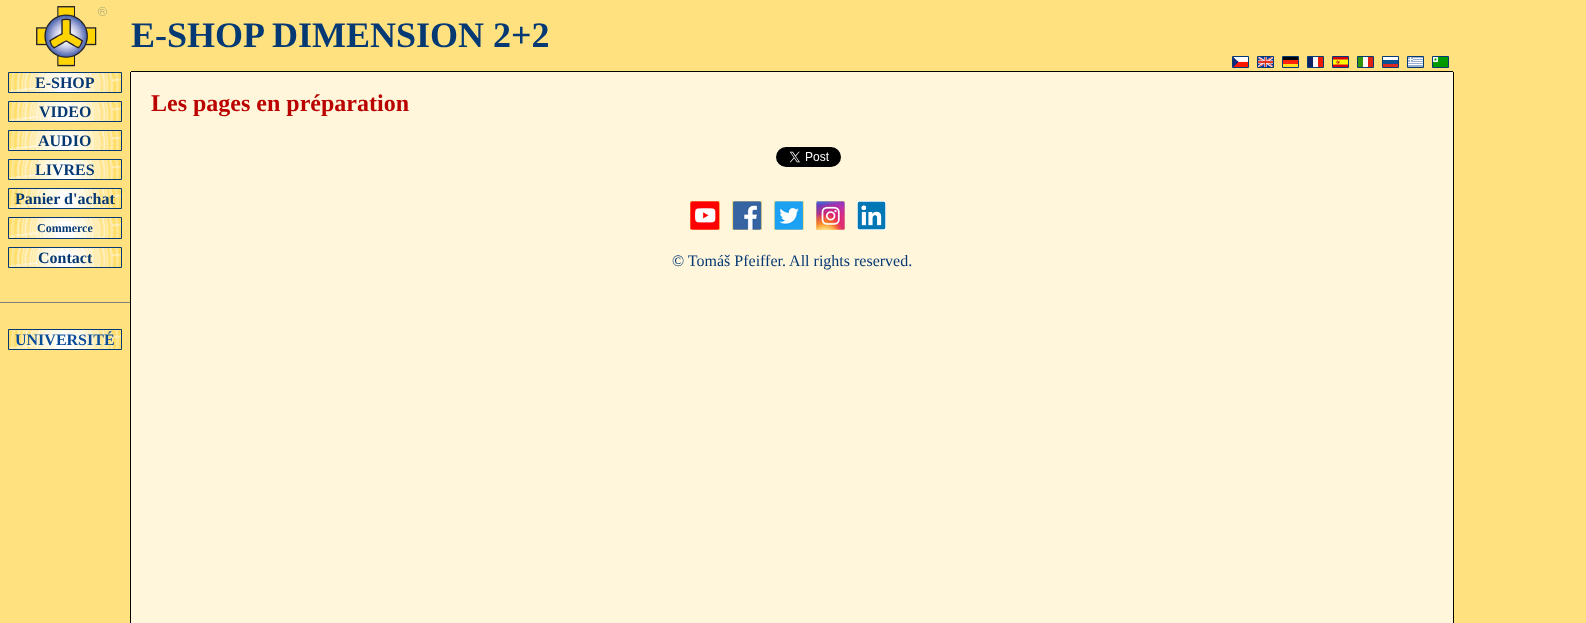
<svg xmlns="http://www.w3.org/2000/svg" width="1586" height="623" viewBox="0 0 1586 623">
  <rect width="100%" height="100%" fill="#ffe27f"/>
  <image x="36" y="6" width="71" height="61" href="img/1.png"/>
  <path d="M131 71h1322v1H131z" fill="#000"/>
  <path d="M1232.5 56.5h16v11H1232.5z" fill="none" stroke="#053974"/>
  <path d="M1257.5 56.5h16v11H1257.5z" fill="none" stroke="#053974"/>
  <path d="M1282.5 56.5h16v11H1282.5z" fill="none" stroke="#053974"/>
  <path d="M1307.5 56.5h16v11H1307.5z" fill="none" stroke="#053974"/>
  <path d="M1332.5 56.5h16v11H1332.5z" fill="none" stroke="#053974"/>
  <path d="M1357.5 56.5h16v11H1357.5z" fill="none" stroke="#053974"/>
  <path d="M1382.5 56.5h16v11H1382.5z" fill="none" stroke="#053974"/>
  <path d="M1407.5 56.5h16v11H1407.5z" fill="none" stroke="#053974"/>
  <path d="M1432.5 56.5h16v11H1432.5z" fill="none" stroke="#053974"/>
  <image x="1233" y="57" width="15" height="10" href="img/2.png"/>
  <image x="1258" y="57" width="15" height="10" href="img/3.png"/>
  <image x="1283" y="57" width="15" height="10" href="img/4.png"/>
  <image x="1308" y="57" width="15" height="10" href="img/5.png"/>
  <image x="1333" y="57" width="15" height="10" href="img/6.png"/>
  <image x="1358" y="57" width="15" height="10" href="img/7.png"/>
  <image x="1383" y="57" width="15" height="10" href="img/8.png"/>
  <image x="1408" y="57" width="15" height="10" href="img/9.png"/>
  <image x="1433" y="57" width="15" height="10" href="img/10.png"/>
  <path d="M130 72h1v551H130z" fill="#000"/>
  <image x="9" y="73" width="112" height="19" href="img/11.png"/>
  <path d="M8.5 72.5h113v20H8.5z" fill="none" stroke="#053974"/>
  <image x="9" y="102" width="112" height="19" href="img/11.png"/>
  <path d="M8.5 101.5h113v20H8.5z" fill="none" stroke="#053974"/>
  <image x="9" y="131" width="112" height="19" href="img/11.png"/>
  <path d="M8.5 130.5h113v20H8.5z" fill="none" stroke="#053974"/>
  <image x="9" y="160" width="112" height="19" href="img/11.png"/>
  <path d="M8.5 159.5h113v20H8.5z" fill="none" stroke="#053974"/>
  <image x="9" y="189" width="112" height="19" href="img/11.png"/>
  <path d="M8.5 188.5h113v20H8.5z" fill="none" stroke="#053974"/>
  <image x="9" y="218" width="112" height="20" href="img/12.png"/>
  <path d="M8.5 217.5h113v21H8.5z" fill="none" stroke="#053974"/>
  <image x="9" y="248" width="112" height="19" href="img/11.png"/>
  <path d="M8.5 247.5h113v20H8.5z" fill="none" stroke="#053974"/>
  <path d="M0 302h130v1H0z" fill="#808080"/>
  <image x="9" y="330" width="112" height="19" href="img/11.png"/>
  <path d="M8.5 329.5h113v20H8.5z" fill="none" stroke="#053974"/>
  <path d="M131 72h1322v551H131z" fill="#fff6dc"/>
  <image x="776" y="147" width="65" height="20" href="img/13.png"/>
  <image x="690" y="201" width="30" height="29" href="img/14.png"/>
  <image x="732" y="201" width="30" height="29" href="img/15.png"/>
  <image x="774" y="201" width="30" height="29" href="img/16.png"/>
  <image x="816" y="201" width="29" height="29" href="img/17.png"/>
  <image x="857" y="201" width="29" height="29" href="img/18.png"/>
  <path d="M1453 72h1v551H1453z" fill="#000"/>
  <text x="131" y="47" font-family="Liberation Serif" font-size="36" font-weight="bold" fill="#053974">E-SHOP DIMENSION 2+2</text>
  <g font-family="Liberation Serif" font-size="16" font-weight="bold" fill="#053974">
    <text x="35" y="88">E-SHOP</text>
    <text x="39" y="117">VIDEO</text>
    <text x="38" y="146">AUDIO</text>
    <text x="35" y="175">LIVRES</text>
    <text x="15" y="204">Panier d'achat</text>
  </g>
  <text x="37" y="232" font-family="Liberation Serif" font-size="12" font-weight="bold" fill="#053974">Commerce</text>
  <text x="38" y="263" font-family="Liberation Serif" font-size="16" font-weight="bold" fill="#053974">Contact</text>
  <text x="15" y="345" font-family="Liberation Serif" font-size="16" font-weight="bold" fill="#074b9a">UNIVERSITÉ</text>
  <text x="151" y="111" font-family="Liberation Serif" font-size="24" font-weight="bold" fill="#b00">Les pages en préparation</text>
  <text x="672" y="266" font-family="Liberation Serif" font-size="16" fill="#053974">© Tomáš Pfeiffer. All rights reserved.</text>
</svg>
